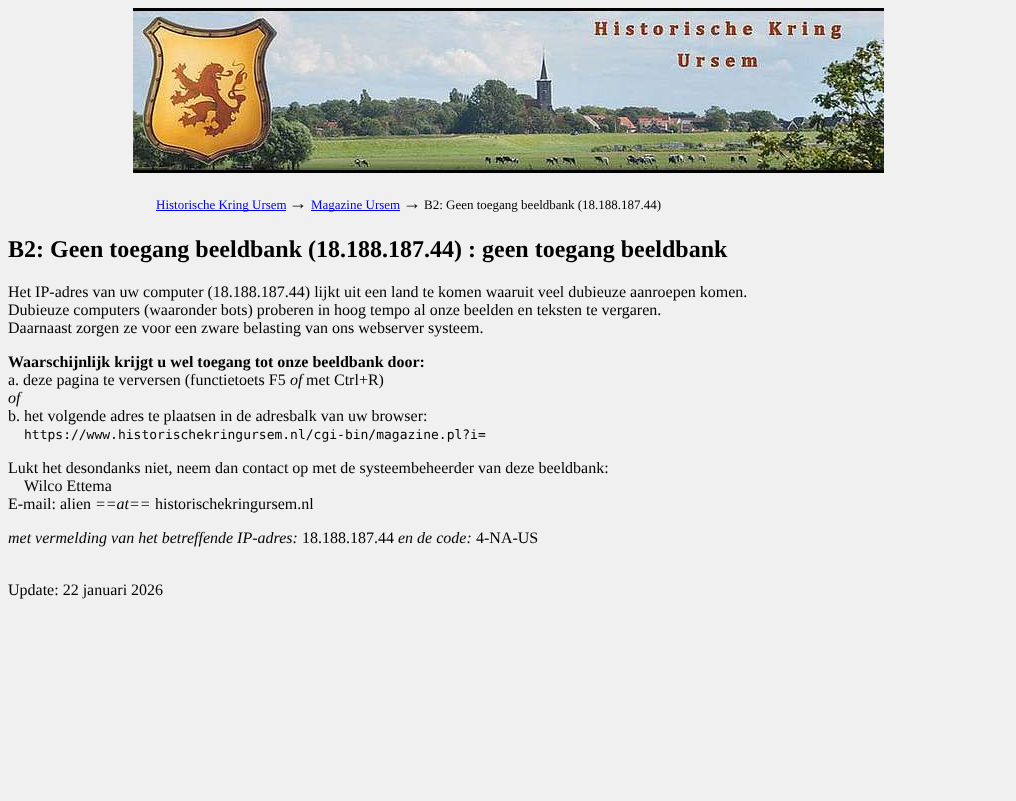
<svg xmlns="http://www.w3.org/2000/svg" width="1016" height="801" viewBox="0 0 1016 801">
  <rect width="100%" height="100%" fill="#f0f0f0"/>
  <image x="133" y="8" width="751" height="165" href="img/1.png"/>
  <path d="M156 210h130v1H156z" fill="#00e"/>
  <path d="M311 210h89v1H311z" fill="#00e"/>
  <text x="156" y="209" font-family="Liberation Serif" font-size="13" fill="#00e">Historische Kring Ursem</text>
  <text x="289" y="209" font-family="Liberation Serif" font-size="18" fill="#000">→</text>
  <text x="311" y="209" font-family="Liberation Serif" font-size="13" fill="#00e">Magazine Ursem</text>
  <text x="403" y="209" font-family="Liberation Serif" font-size="18" fill="#000">→</text>
  <text x="424" y="209" font-family="Liberation Serif" font-size="13" fill="#000">B2: Geen toegang beeldbank (18.188.187.44)</text>
  <text x="8" y="257" font-family="Liberation Serif" font-size="24" font-weight="bold" fill="#000">B2: Geen toegang beeldbank (18.188.187.44) : geen toegang beeldbank</text>
  <g font-family="Liberation Serif" font-size="16" fill="#000">
    <text x="8" y="297">Het IP-adres van uw computer (18.188.187.44) lijkt uit een land te komen waaruit veel dubieuze aanroepen komen.</text>
    <text x="8" y="315">Dubieuze computers (waaronder bots) proberen in hoog tempo al onze beelden en teksten te vergaren.</text>
    <text x="8" y="333">Daarnaast zorgen ze voor een zware belasting van ons webserver systeem.</text>
  </g>
  <text x="8" y="367" font-family="Liberation Serif" font-size="16" font-weight="bold" fill="#000">Waarschijnlijk krijgt u wel toegang tot onze beeldbank door:</text>
  <text x="8" y="385" font-family="Liberation Serif" font-size="16" fill="#000">a. deze pagina te verversen (functietoets F5</text>
  <text x="290" y="385" font-family="Liberation Serif" font-size="16" font-style="italic" fill="#000">of</text>
  <text x="306" y="385" font-family="Liberation Serif" font-size="16" fill="#000">met Ctrl+R)</text>
  <text x="8" y="403" font-family="Liberation Serif" font-size="16" font-style="italic" fill="#000">of</text>
  <text x="8" y="421" font-family="Liberation Serif" font-size="16" fill="#000">b. het volgende adres te plaatsen in de adresbalk van uw browser:</text>
  <text x="24" y="439" font-family="DejaVu Sans Mono" font-size="13" fill="#000">https://www.historischekringursem.nl/cgi-bin/magazine.pl?i=</text>
  <g font-family="Liberation Serif" font-size="16" fill="#000">
    <text x="8" y="473">Lukt het desondanks niet, neem dan contact op met de systeembeheerder van deze beeldbank:</text>
    <text x="24" y="491">Wilco Ettema</text>
    <text x="8" y="509">E-mail: alien</text>
  </g>
  <text x="95" y="509" font-family="Liberation Serif" font-size="16" font-style="italic" fill="#000">==at==</text>
  <text x="155" y="509" font-family="Liberation Serif" font-size="16" fill="#000">historischekringursem.nl</text>
  <text x="8" y="543" font-family="Liberation Serif" font-size="16" font-style="italic" fill="#000">met vermelding van het betreffende IP-adres:</text>
  <text x="302" y="543" font-family="Liberation Serif" font-size="16" fill="#000">18.188.187.44</text>
  <text x="398" y="543" font-family="Liberation Serif" font-size="16" font-style="italic" fill="#000">en de code:</text>
  <g font-family="Liberation Serif" font-size="16" fill="#000">
    <text x="476" y="543">4-NA-US</text>
    <text x="8" y="595">Update: 22 januari 2026</text>
  </g>
</svg>
